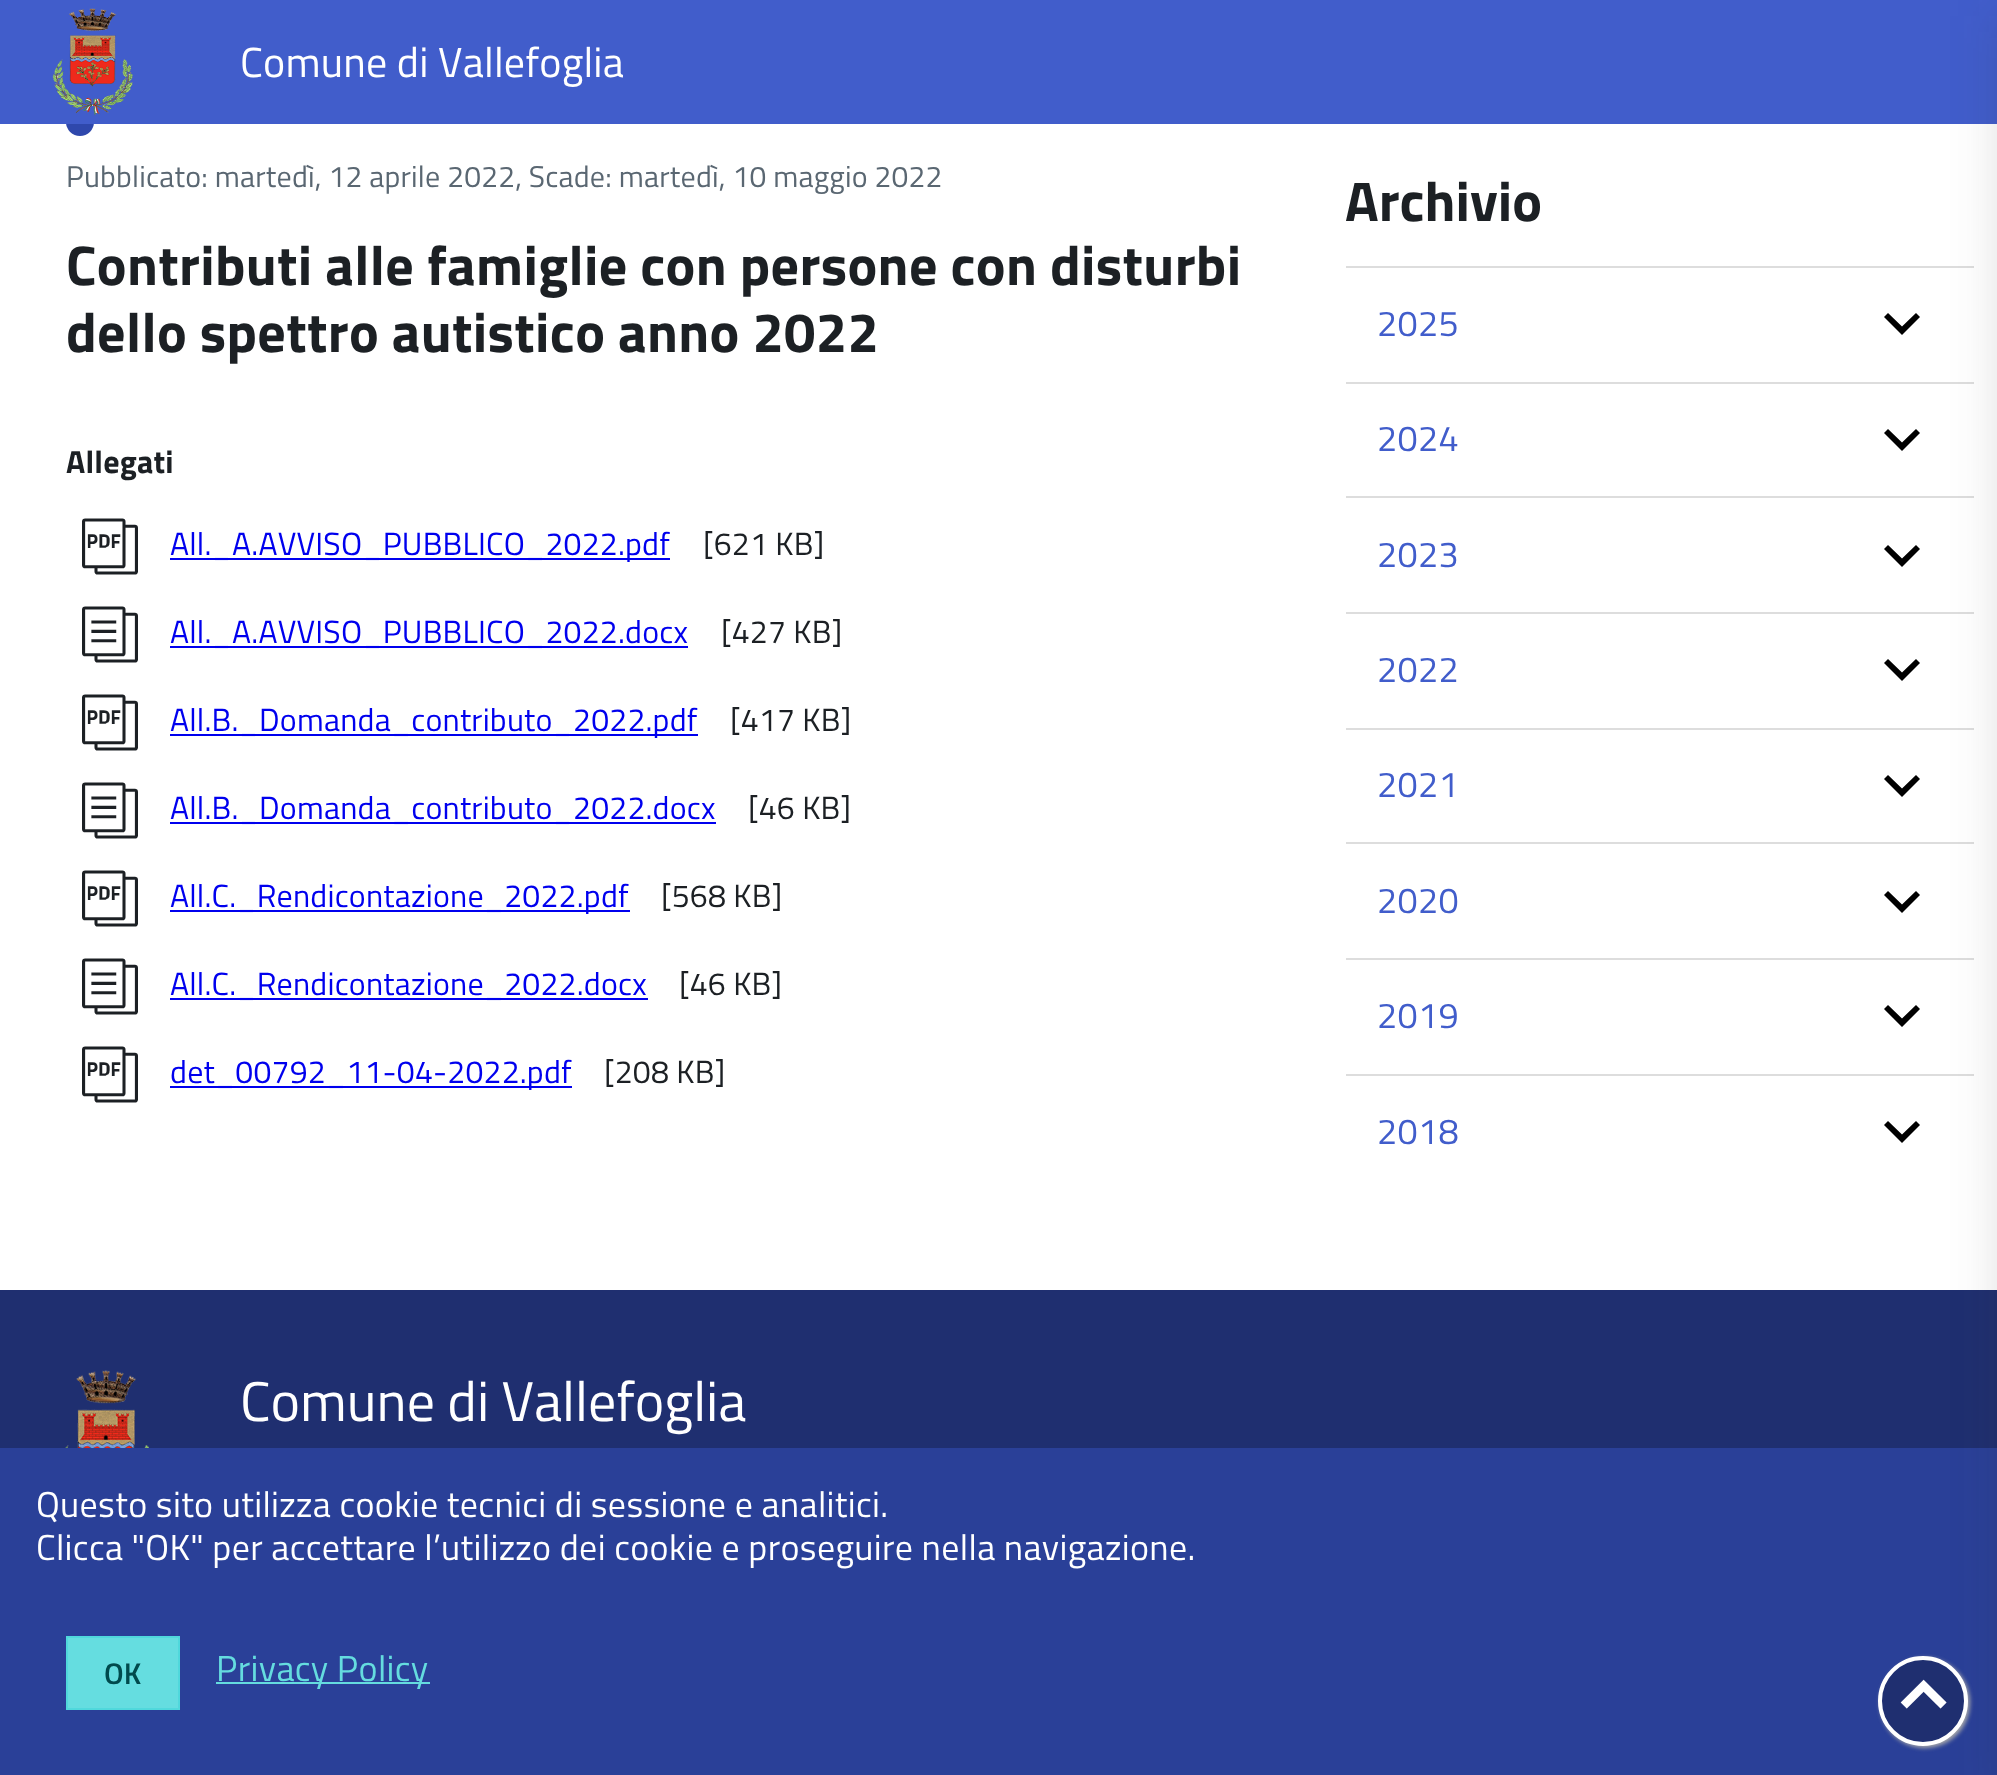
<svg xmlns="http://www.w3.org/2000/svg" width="1997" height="1775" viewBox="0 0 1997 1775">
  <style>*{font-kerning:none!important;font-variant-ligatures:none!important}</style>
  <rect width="100%" height="100%" fill="#fff"/>
  <circle cx="80" cy="122" r="14" fill="#2f48ac"/>
  <path d="M0 0h1997v124H0z" fill="#415dcb"/>
  <image x="52" y="8" width="81" height="108" href="img/1.png"/>
  <path d="M1346 266h628v2H1346z" fill="#ddd"/>
  <path d="M1346 382h628v2H1346z" fill="#ddd"/>
  <path d="M1346 496h628v2H1346z" fill="#ddd"/>
  <path d="M1346 612h628v2H1346z" fill="#ddd"/>
  <path d="M1346 728h628v2H1346z" fill="#ddd"/>
  <path d="M1346 842h628v2H1346z" fill="#ddd"/>
  <path d="M1346 958h628v2H1346z" fill="#ddd"/>
  <path d="M1346 1074h628v2H1346z" fill="#ddd"/>
  <path d="M0 1290h1997v158H0z" fill="#1f2f70"/>
  <path d="M0 1448h1997v327H0z" fill="#2a4098"/>
  <path d="M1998 16h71v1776H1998z" fill="#32323226" filter="blur(24px)"/>
  <path d="M170 558h500v2H170z" fill="#00e"/>
  <path d="M170 646h518v2H170z" fill="#00e"/>
  <path d="M170 734h528v2H170z" fill="#00e"/>
  <path d="M170 822h546v2H170z" fill="#00e"/>
  <path d="M170 910h460v2H170z" fill="#00e"/>
  <path d="M170 998h478v2H170z" fill="#00e"/>
  <path d="M170 1086h402v2H170z" fill="#00e"/>
  <path d="M1888 313L1884 317L1902 335L1920 317L1916 313L1902 326.5Z" fill="#000"/>
  <path d="M1888 429L1884 433L1902 451L1920 433L1916 429L1902 442.5Z" fill="#000"/>
  <path d="M1888 545L1884 549L1902 567L1920 549L1916 545L1902 558.5Z" fill="#000"/>
  <path d="M1888 659L1884 663L1902 681L1920 663L1916 659L1902 672.5Z" fill="#000"/>
  <path d="M1888 775L1884 779L1902 797L1920 779L1916 775L1902 788.5Z" fill="#000"/>
  <path d="M1888 891L1884 895L1902 913L1920 895L1916 891L1902 904.5Z" fill="#000"/>
  <path d="M1888 1005L1884 1009L1902 1027L1920 1009L1916 1005L1902 1018.5Z" fill="#000"/>
  <path d="M1888 1121L1884 1125L1902 1143L1920 1125L1916 1121L1902 1134.5Z" fill="#000"/>
  <rect x="1880" y="1658" width="90" height="90" rx="45" fill="#aaa" filter="blur(2px)"/>
  <circle cx="1923" cy="1701" r="43" fill="#1f2f70" stroke="#fff" stroke-width="4"/>
  <image x="65" y="1370" width="84" height="78" href="img/2.png"/>
  <path d="M67 1637h112v72H67z" fill="#65dde0" stroke="#50d8dc" stroke-width="2"/>
  <path d="M216 1682h214v2H216z" fill="#65dcdf"/>
  <text x="240" y="77" font-family="Titillium Web" font-size="42" letter-spacing="0.2" fill="#fff">Comune di Vallefoglia</text>
  <text x="66" y="187" font-family="Titillium Web" font-size="30" letter-spacing="0.2" fill="#5a6772">Pubblicato: martedì, 12 aprile 2022, Scade: martedì, 10 maggio 2022</text>
  <g font-family="Titillium Web" font-size="56" font-weight="bold" letter-spacing="0.35" fill="#1c2024">
    <text x="66" y="285">Contributi alle famiglie con persone con disturbi</text>
    <text x="66" y="352">dello spettro autistico anno 2022</text>
  </g>
  <text x="66" y="473" font-family="Titillium Web" font-size="32" font-weight="bold" letter-spacing="0.2" fill="#1c2024">Allegati</text>
  <text x="82" y="571" font-family="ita" font-size="56" letter-spacing="0.2" fill="#1c2024">🗋</text>
  <text x="170" y="555" font-family="Titillium Web" font-size="32" letter-spacing="0.2" fill="#00e">All._A.AVVISO_PUBBLICO_2022.pdf</text>
  <text x="703" y="555" font-family="Titillium Web" font-size="32" letter-spacing="0.2" fill="#1c2024">[621 KB]</text>
  <text x="82" y="659" font-family="ita" font-size="56" letter-spacing="0.2" fill="#1c2024">📄</text>
  <text x="170" y="643" font-family="Titillium Web" font-size="32" letter-spacing="0.2" fill="#00e">All._A.AVVISO_PUBBLICO_2022.docx</text>
  <text x="721" y="643" font-family="Titillium Web" font-size="32" letter-spacing="0.2" fill="#1c2024">[427 KB]</text>
  <text x="82" y="747" font-family="ita" font-size="56" letter-spacing="0.2" fill="#1c2024">🗋</text>
  <text x="170" y="731" font-family="Titillium Web" font-size="32" letter-spacing="0.2" fill="#00e">All.B._Domanda_contributo_2022.pdf</text>
  <text x="730" y="731" font-family="Titillium Web" font-size="32" letter-spacing="0.2" fill="#1c2024">[417 KB]</text>
  <text x="82" y="835" font-family="ita" font-size="56" letter-spacing="0.2" fill="#1c2024">📄</text>
  <text x="170" y="819" font-family="Titillium Web" font-size="32" letter-spacing="0.2" fill="#00e">All.B._Domanda_contributo_2022.docx</text>
  <text x="748" y="819" font-family="Titillium Web" font-size="32" letter-spacing="0.2" fill="#1c2024">[46 KB]</text>
  <text x="82" y="923" font-family="ita" font-size="56" letter-spacing="0.2" fill="#1c2024">🗋</text>
  <text x="170" y="907" font-family="Titillium Web" font-size="32" letter-spacing="0.2" fill="#00e">All.C._Rendicontazione_2022.pdf</text>
  <text x="661" y="907" font-family="Titillium Web" font-size="32" letter-spacing="0.2" fill="#1c2024">[568 KB]</text>
  <text x="82" y="1011" font-family="ita" font-size="56" letter-spacing="0.2" fill="#1c2024">📄</text>
  <text x="170" y="995" font-family="Titillium Web" font-size="32" letter-spacing="0.2" fill="#00e">All.C._Rendicontazione_2022.docx</text>
  <text x="679" y="995" font-family="Titillium Web" font-size="32" letter-spacing="0.2" fill="#1c2024">[46 KB]</text>
  <text x="82" y="1099" font-family="ita" font-size="56" letter-spacing="0.2" fill="#1c2024">🗋</text>
  <text x="170" y="1083" font-family="Titillium Web" font-size="32" letter-spacing="0.2" fill="#00e">det_00792_11-04-2022.pdf</text>
  <text x="604" y="1083" font-family="Titillium Web" font-size="32" letter-spacing="0.2" fill="#1c2024">[208 KB]</text>
  <text x="1345" y="221" font-family="Titillium Web" font-size="56" font-weight="bold" fill="#1c2024">Archivio</text>
  <g font-family="Titillium Web" font-size="36" letter-spacing="0.35" fill="#415dcb">
    <text x="1377" y="336">2025</text>
    <text x="1377" y="451">2024</text>
    <text x="1377" y="567">2023</text>
    <text x="1377" y="682">2022</text>
    <text x="1377" y="797">2021</text>
    <text x="1377" y="913">2020</text>
    <text x="1377" y="1028">2019</text>
    <text x="1377" y="1144">2018</text>
  </g>
  <text x="1901" y="1714" font-family="ita" font-size="44" font-weight="bold" fill="#fff">⏷</text>
  <text x="240" y="1421" font-family="Titillium Web" font-size="56" fill="#fff">Comune di Vallefoglia</text>
  <g font-family="Titillium Web" font-size="36" letter-spacing="0.35" fill="#fff">
    <text x="36" y="1517">Questo sito utilizza cookie tecnici di sessione e analitici.</text>
    <text x="36" y="1560">Clicca "OK" per accettare l’utilizzo dei cookie e proseguire nella navigazione.</text>
  </g>
  <text x="104" y="1684" font-family="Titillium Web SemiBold" font-size="30" font-weight="600" fill="#004a4d">OK</text>
  <text x="216" y="1681" font-family="Titillium Web" font-size="36" letter-spacing="0.35" fill="#65dcdf">Privacy Policy</text>
</svg>
